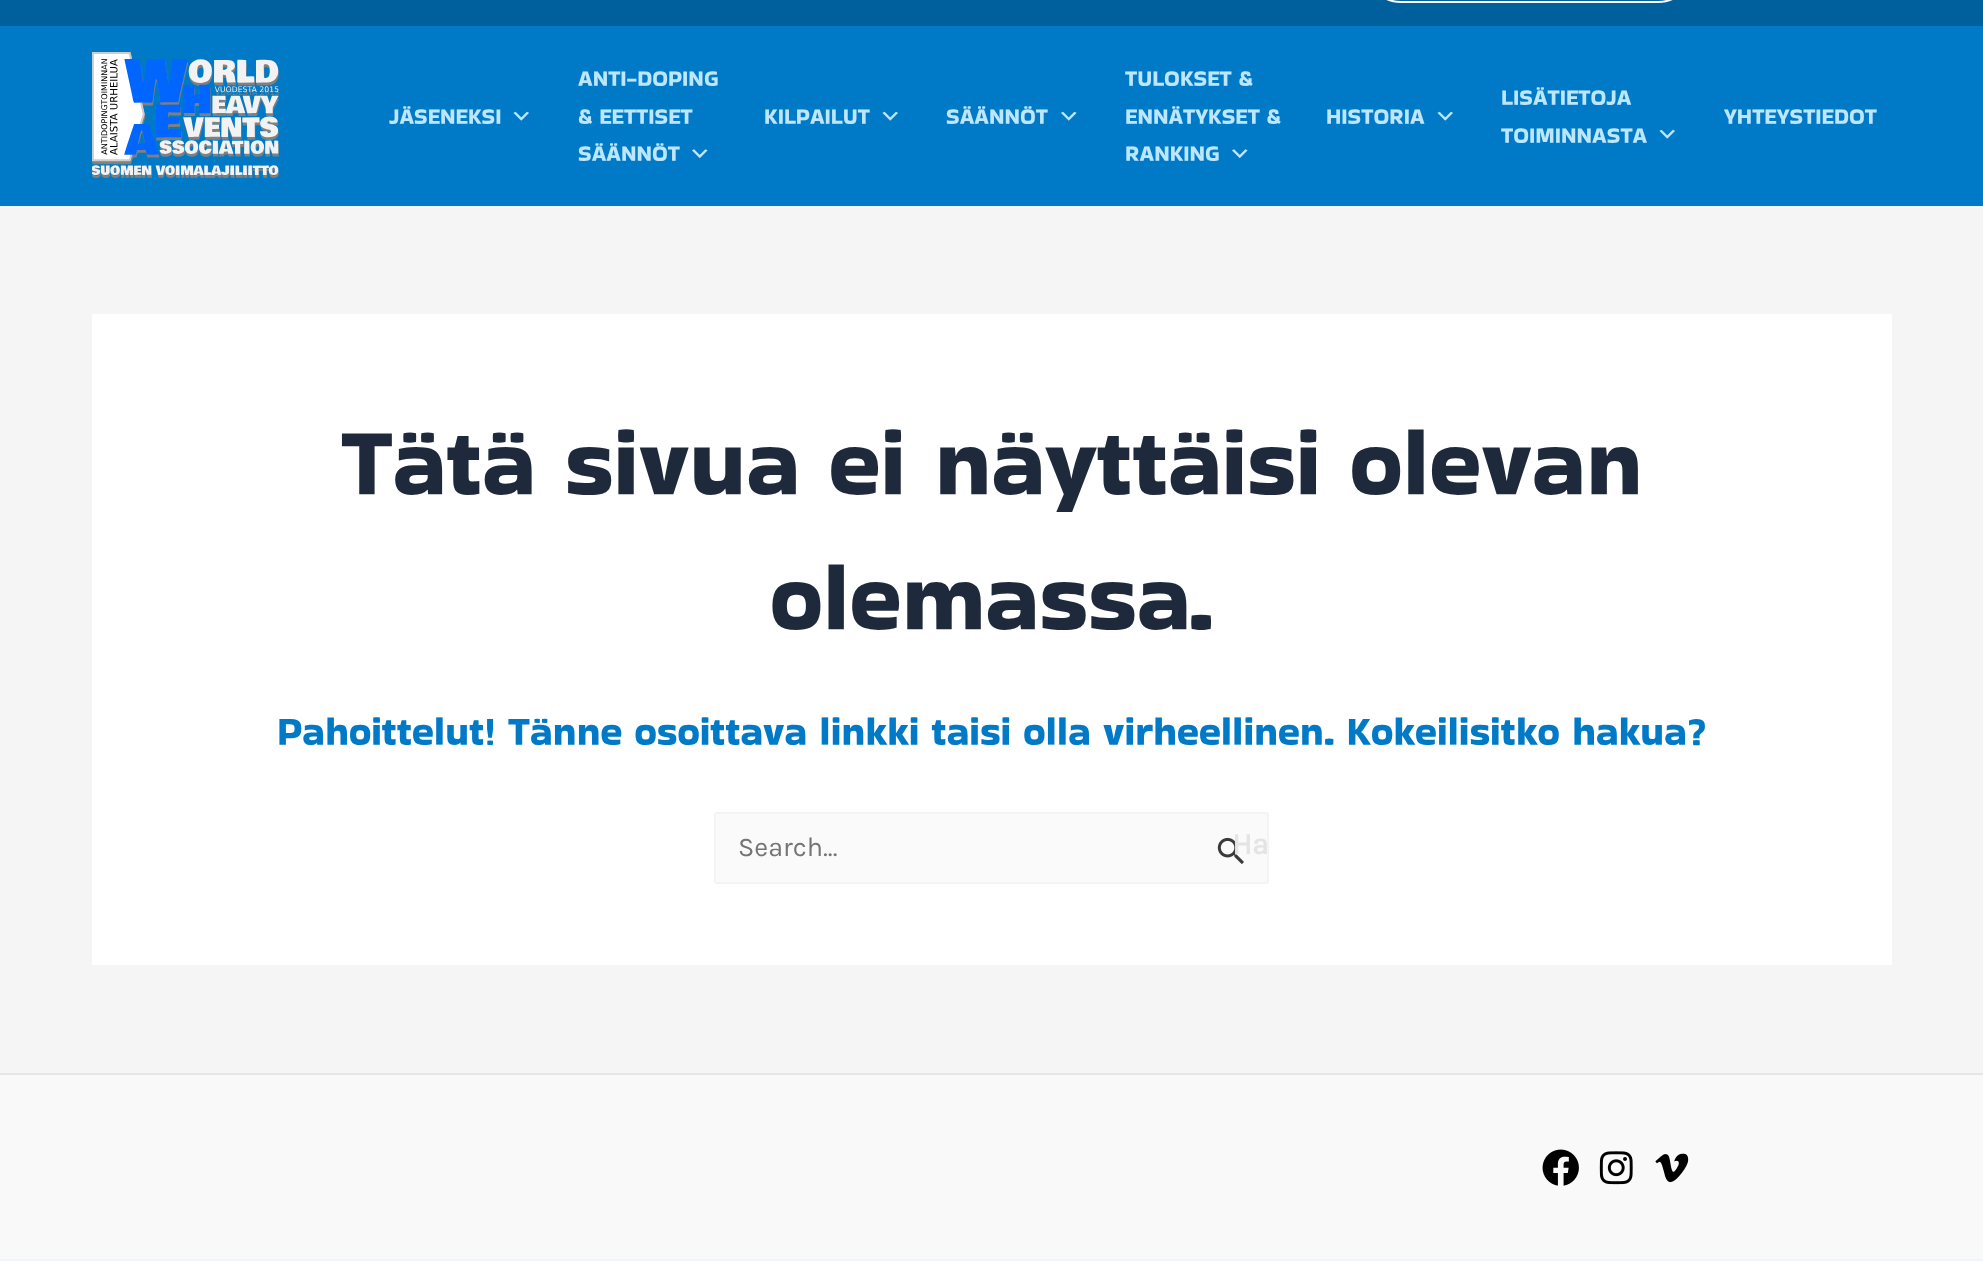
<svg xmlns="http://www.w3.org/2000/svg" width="1983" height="1261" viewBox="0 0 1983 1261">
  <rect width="100%" height="100%" fill="#f5f5f5"/>
  <path d="M0 0h1983v26H0z" fill="#00609d"/>
  <rect x="1378" y="-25" width="303" height="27" rx="23" fill="none" stroke="#fff" stroke-width="2"/>
  <path d="M0 26h1983v180H0z" fill="#007ac6"/>
  <image x="92" y="52" width="187" height="126" href="img/1.png"/>
  <image x="513" y="111" width="16" height="10" href="img/2.png"/>
  <image x="692" y="149" width="16" height="10" href="img/3.png"/>
  <image x="882" y="111" width="16" height="10" href="img/2.png"/>
  <image x="1061" y="111" width="16" height="10" href="img/4.png"/>
  <image x="1232" y="149" width="16" height="10" href="img/3.png"/>
  <image x="1437" y="111" width="16" height="10" href="img/2.png"/>
  <image x="1659" y="129" width="16" height="10" href="img/2.png"/>
  <path d="M92 314h1800v651H92z" fill="#fff"/>
  <rect x="715" y="813" width="553" height="70" rx="2" fill="#fafafa" stroke="#f2f5f7" stroke-width="2"/>
  <image x="1217" y="837" width="27" height="28" href="img/5.png"/>
  <path d="M0 1075h1983v184H0z" fill="#f9f9f9"/>
  <path d="M0 1073h1983v2H0z" fill="#e6e6e6"/>
  <image x="1542" y="1149" width="37" height="37" href="img/6.png"/>
  <image x="1599" y="1151" width="34" height="34" href="img/7.png"/>
  <image x="1655" y="1153" width="34" height="30" href="img/8.png"/>
  <path d="M0 1259h1983v2H0z" fill="#f2f5f7"/>
  <g font-family="Bakbak One" font-size="22.5" fill="#bde6ff">
    <text x="389" y="124">JÄSENEKSI</text>
    <text x="578" y="86">ANTI-DOPING</text>
    <text x="578" y="124">&amp; EETTISET</text>
    <text x="578" y="161">SÄÄNNÖT</text>
    <text x="764" y="124">KILPAILUT</text>
    <text x="946" y="124">SÄÄNNÖT</text>
    <text x="1125" y="86">TULOKSET &amp;</text>
    <text x="1125" y="124">ENNÄTYKSET &amp;</text>
    <text x="1125" y="161">RANKING</text>
    <text x="1326" y="124">HISTORIA</text>
    <text x="1501" y="105">LISÄTIETOJA</text>
    <text x="1501" y="143">TOIMINNASTA</text>
    <text x="1724" y="124">YHTEYSTIEDOT</text>
  </g>
  <g font-family="Bakbak One" font-size="96" fill="#1e293b">
    <text x="341" y="495">Tätä sivua ei näyttäisi olevan</text>
    <text x="770" y="630">olemassa.</text>
  </g>
  <text x="277" y="745" font-family="Bakbak One" font-size="40.5" fill="#007ac6">Pahoittelut! Tänne osoittava linkki taisi olla virheellinen. Kokeilisitko hakua?</text>
  <text x="738" y="856" font-family="Karla" font-size="27" fill="#757575">Search...</text>
  <text x="1232" y="854" font-family="Karla" font-size="30" font-weight="bold" fill="#e4e4e4">Ha</text>
</svg>
